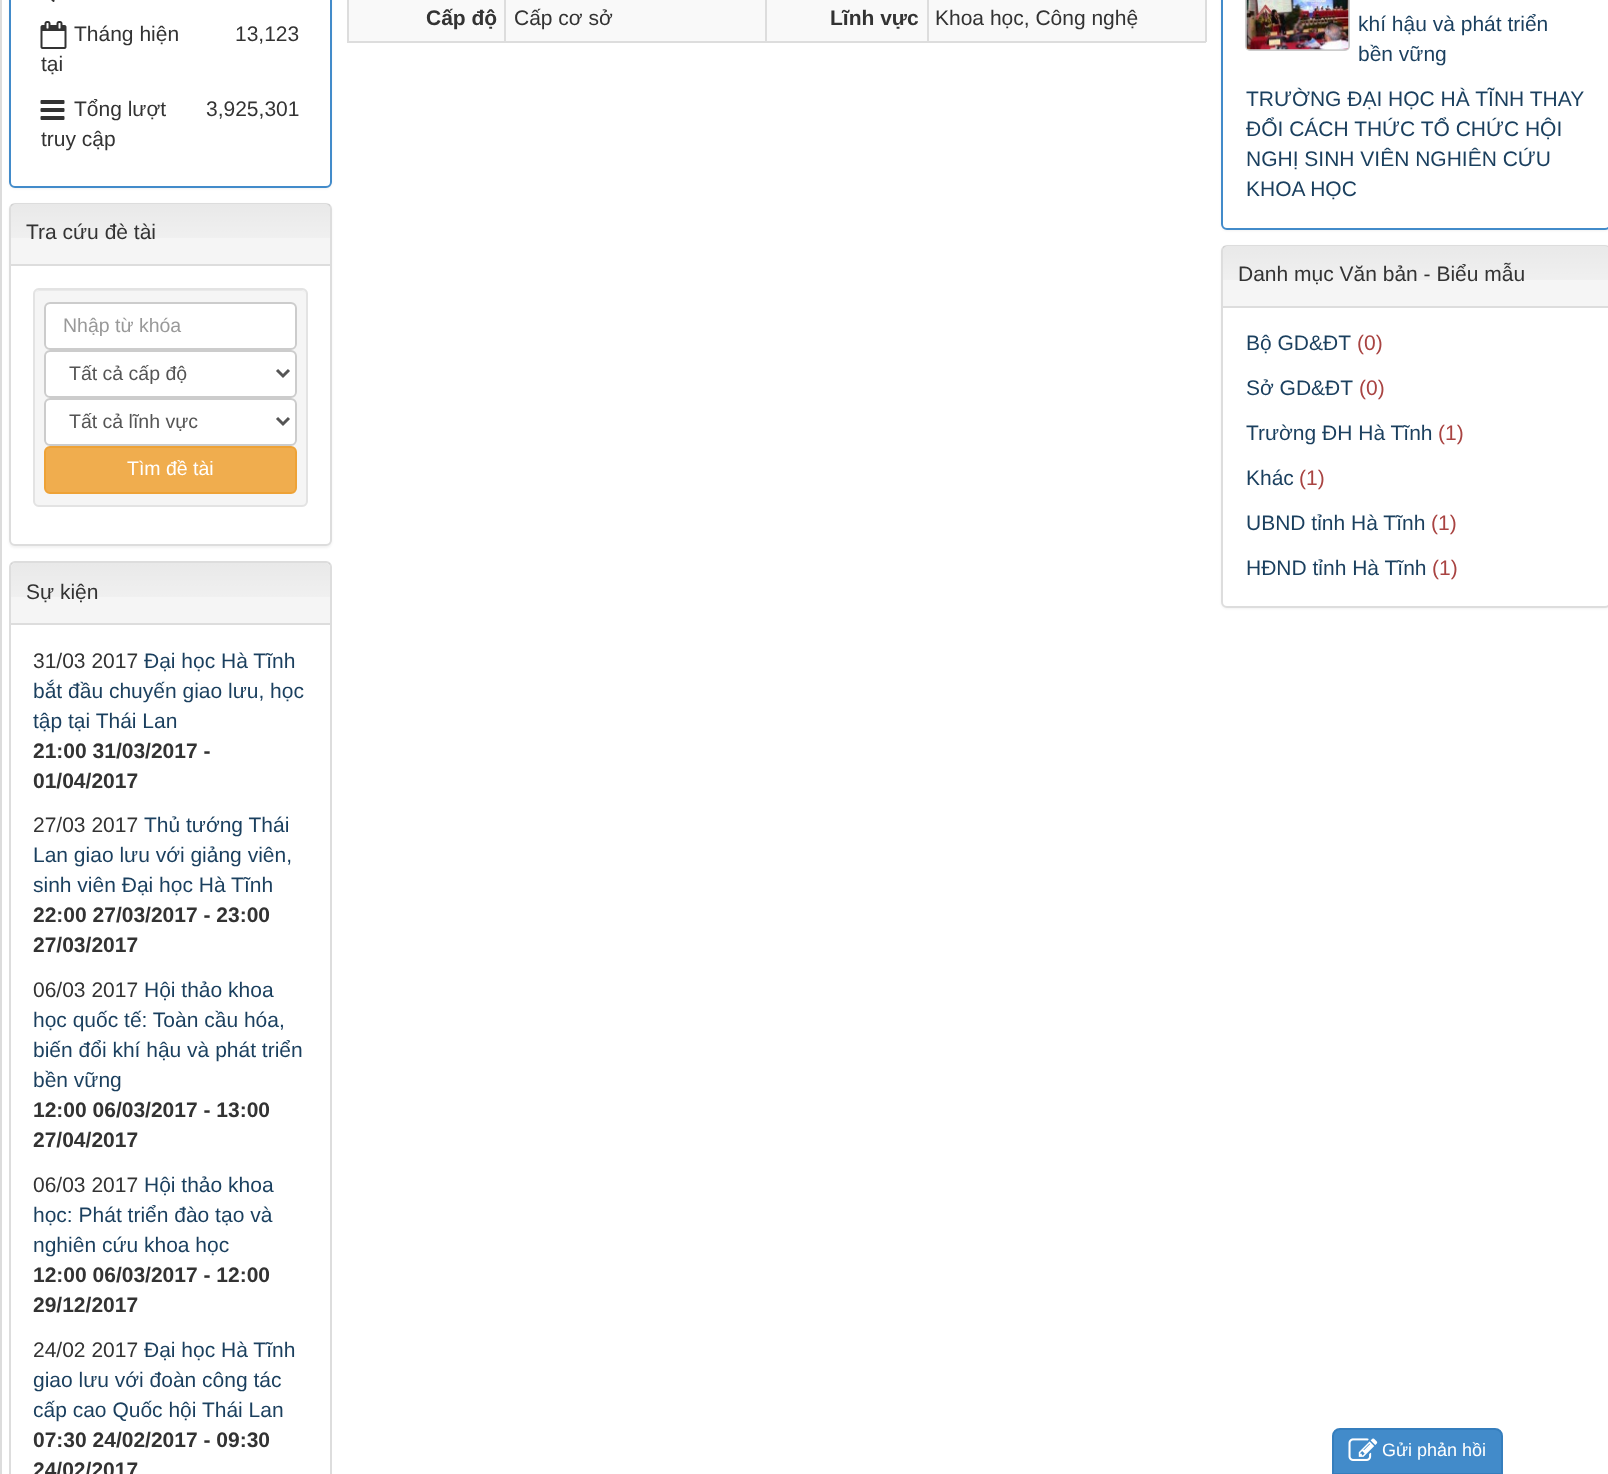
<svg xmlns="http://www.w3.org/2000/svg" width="1608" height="1474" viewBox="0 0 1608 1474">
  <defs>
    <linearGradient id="g1" gradientUnits="userSpaceOnUse" x1="170" y1="204" x2="170" y2="264"><stop offset="0" stop-color="#000" stop-opacity="0.05"/><stop offset="1" stop-color="#000" stop-opacity="0"/></linearGradient>
    <linearGradient id="g2" gradientUnits="userSpaceOnUse" x1="170" y1="563" x2="170" y2="623"><stop offset="0" stop-color="#000" stop-opacity="0.05"/><stop offset="1" stop-color="#000" stop-opacity="0"/></linearGradient>
    <linearGradient id="g3" gradientUnits="userSpaceOnUse" x1="1416" y1="246" x2="1416" y2="306"><stop offset="0" stop-color="#000" stop-opacity="0.05"/><stop offset="1" stop-color="#000" stop-opacity="0"/></linearGradient>
  </defs>
  <rect width="100%" height="100%" fill="#fff"/>
  <path d="M0 0h2v1474H0z" fill="#dcdcdc"/>
  <rect x="9" y="-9" width="323" height="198" rx="6" fill="#0000000d" filter="blur(1px)"/>
  <rect x="10" y="-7" width="321" height="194" rx="5" fill="#fff" stroke="#428bca" stroke-width="2"/>
  <image x="51" y="0" width="4" height="2" href="img/1.png"/>
  <image x="40" y="21" width="27" height="28" href="img/2.png"/>
  <image x="40" y="100" width="25" height="20" href="img/3.png"/>
  <rect x="9" y="204" width="323" height="344" rx="6" fill="#0000000d" filter="blur(1px)"/>
  <rect x="10" y="204" width="321" height="341" rx="5" fill="#fff" stroke="#ddd" stroke-width="2"/>
  <path d="M16 204H325C328 204 330 206 330 209V266H11V209C11 206 13 204 16 204Z" fill="#f5f5f5"/>
  <path d="M11 204h319v34H11z" fill="url(#g1)"/>
  <path d="M11 264h319v2H11z" fill="#ddd"/>
  <rect x="33" y="288" width="275" height="219" rx="6" fill="#f5f5f5"/>
  <path d="M39 291H302C304 291 306 293 306 296C306 293 304 290 301 290H39L37 291L36 292Z" fill="#e9e9e9"/>
  <rect x="34" y="289" width="273" height="217" rx="5" fill="none" stroke="#e3e3e3" stroke-width="2"/>
  <rect x="44" y="302" width="253" height="48" rx="6" fill="#fff"/>
  <path d="M50 304H291C293 304 296 307 296 309V308C296 305 294 303 291 303H50C47 303 45 305 45 308V309C45 307 47 304 50 304Z" fill="#ececec"/>
  <rect x="45" y="303" width="251" height="46" rx="5" fill="none" stroke="#ccc" stroke-width="2"/>
  <rect x="44" y="350" width="253" height="48" rx="6" fill="#fff"/>
  <path d="M50 352H291C293 352 296 355 296 357V356C296 353 294 351 291 351H50C47 351 45 353 45 356V357C45 355 47 352 50 352Z" fill="#ececec"/>
  <rect x="45" y="351" width="251" height="46" rx="5" fill="none" stroke="#ccc" stroke-width="2"/>
  <path d="M277 370L283 376L289 370" fill="none" stroke="#555" stroke-width="3"/>
  <rect x="44" y="398" width="253" height="48" rx="6" fill="#fff"/>
  <path d="M50 400H291C293 400 296 403 296 405V404C296 401 294 399 291 399H50C47 399 45 401 45 404V405C45 403 47 400 50 400Z" fill="#ececec"/>
  <rect x="45" y="399" width="251" height="46" rx="5" fill="none" stroke="#ccc" stroke-width="2"/>
  <path d="M277 418L283 424L289 418" fill="none" stroke="#555" stroke-width="3"/>
  <rect x="45" y="447" width="251" height="46" rx="5" fill="#f0ad4e" stroke="#eea236" stroke-width="2"/>
  <rect x="10" y="562" width="321" height="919" rx="5" fill="none" stroke="#ddd" stroke-width="2"/>
  <path d="M16 563H325C328 563 330 565 330 568V624H11V568C11 565 13 563 16 563Z" fill="#f5f5f5"/>
  <path d="M11 563h319v34H11z" fill="url(#g2)"/>
  <path d="M11 623h319v2H11z" fill="#ddd"/>
  <path d="M1205 0h2v42H1205z" fill="#ddd"/>
  <path d="M347 41h859v2H347z" fill="#ddd"/>
  <path d="M347 0h2v42H347z" fill="#ddd"/>
  <path d="M349 0h856v41H349z" fill="#f9f9f9"/>
  <path d="M504 0h2v42H504z" fill="#ddd"/>
  <path d="M765 0h2v42H765z" fill="#ddd"/>
  <path d="M927 0h2v42H927z" fill="#ddd"/>
  <rect x="1221" y="-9" width="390" height="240" rx="6" fill="#0000000d" filter="blur(1px)"/>
  <rect x="1222" y="-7" width="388" height="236" rx="5" fill="#fff" stroke="#428bca" stroke-width="2"/>
  <rect x="1245" y="-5" width="105" height="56" rx="5" fill="#ccc"/>
  <image x="1246" y="0" width="103" height="50" href="img/4.png"/>
  <rect x="1221" y="246" width="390" height="363" rx="6" fill="#0000000d" filter="blur(1px)"/>
  <rect x="1222" y="246" width="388" height="361" rx="5" fill="#fff" stroke="#ddd" stroke-width="2"/>
  <path d="M1228 246H1605C1608 246 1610 248 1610 251V308H1223V251C1223 248 1225 246 1228 246Z" fill="#f5f5f5"/>
  <path d="M1223 246h385v34H1223z" fill="url(#g3)"/>
  <path d="M1223 306h385v2H1223z" fill="#ddd"/>
  <path d="M1340 1429H1495C1499 1429 1502 1432 1502 1436V1474H1333V1436C1333 1432 1336 1429 1340 1429Z" fill="#428bca" stroke="#357ebd" stroke-width="2"/>
  <image x="1348" y="1438" width="30" height="23" href="img/5.png"/>
  <g font-family="Liberation Sans" font-size="21" fill="#333">
    <text x="74" y="41">Tháng hiện</text>
    <text x="41" y="71">tại</text>
    <text x="235" y="41">13,123</text>
    <text x="74" y="116">Tổng lượt</text>
    <text x="41" y="146">truy cập</text>
    <text x="206" y="116">3,925,301</text>
    <text x="26" y="239">Tra cứu đè tài</text>
  </g>
  <text x="63" y="332" font-family="Liberation Sans" font-size="19.5" fill="#999">Nhập từ khóa</text>
  <g font-family="Liberation Sans" font-size="19.5" fill="#555">
    <text x="69" y="380">Tất cả cấp độ</text>
    <text x="69" y="428">Tất cả lĩnh vực</text>
  </g>
  <text x="127" y="475" font-family="Liberation Sans" font-size="19.5" fill="#fff">Tìm đề tài</text>
  <g font-family="Liberation Sans" font-size="21" fill="#333">
    <text x="26" y="599">Sự kiện</text>
    <text x="33" y="668">31/03 2017</text>
  </g>
  <g font-family="Liberation Sans" font-size="21" fill="#1a3f5e">
    <text x="144" y="668">Đại học Hà Tĩnh</text>
    <text x="33" y="698">bắt đầu chuyến giao lưu, học</text>
    <text x="33" y="728">tập tại Thái Lan</text>
  </g>
  <g font-family="Liberation Sans" font-size="21" font-weight="bold" fill="#333">
    <text x="33" y="758">21:00 31/03/2017 -</text>
    <text x="33" y="788">01/04/2017</text>
  </g>
  <text x="33" y="832" font-family="Liberation Sans" font-size="21" fill="#333">27/03 2017</text>
  <g font-family="Liberation Sans" font-size="21" fill="#1a3f5e">
    <text x="144" y="832">Thủ tướng Thái</text>
    <text x="33" y="862">Lan giao lưu với giảng viên,</text>
    <text x="33" y="892">sinh viên Đại học Hà Tĩnh</text>
  </g>
  <g font-family="Liberation Sans" font-size="21" font-weight="bold" fill="#333">
    <text x="33" y="922">22:00 27/03/2017 - 23:00</text>
    <text x="33" y="952">27/03/2017</text>
  </g>
  <text x="33" y="997" font-family="Liberation Sans" font-size="21" fill="#333">06/03 2017</text>
  <g font-family="Liberation Sans" font-size="21" fill="#1a3f5e">
    <text x="144" y="997">Hội thảo khoa</text>
    <text x="33" y="1027">học quốc tế: Toàn cầu hóa,</text>
    <text x="33" y="1057">biến đổi khí hậu và phát triển</text>
    <text x="33" y="1087">bền vững</text>
  </g>
  <g font-family="Liberation Sans" font-size="21" font-weight="bold" fill="#333">
    <text x="33" y="1117">12:00 06/03/2017 - 13:00</text>
    <text x="33" y="1147">27/04/2017</text>
  </g>
  <text x="33" y="1192" font-family="Liberation Sans" font-size="21" fill="#333">06/03 2017</text>
  <g font-family="Liberation Sans" font-size="21" fill="#1a3f5e">
    <text x="144" y="1192">Hội thảo khoa</text>
    <text x="33" y="1222">học: Phát triển đào tạo và</text>
    <text x="33" y="1252">nghiên cứu khoa học</text>
  </g>
  <g font-family="Liberation Sans" font-size="21" font-weight="bold" fill="#333">
    <text x="33" y="1282">12:00 06/03/2017 - 12:00</text>
    <text x="33" y="1312">29/12/2017</text>
  </g>
  <text x="33" y="1357" font-family="Liberation Sans" font-size="21" fill="#333">24/02 2017</text>
  <g font-family="Liberation Sans" font-size="21" fill="#1a3f5e">
    <text x="144" y="1357">Đại học Hà Tĩnh</text>
    <text x="33" y="1387">giao lưu với đoàn công tác</text>
    <text x="33" y="1417">cấp cao Quốc hội Thái Lan</text>
  </g>
  <g font-family="Liberation Sans" font-size="21" font-weight="bold" fill="#333">
    <text x="33" y="1447">07:30 24/02/2017 - 09:30</text>
    <text x="33" y="1477">24/02/2017</text>
    <text x="426" y="25">Cấp độ</text>
  </g>
  <text x="514" y="25" font-family="Liberation Sans" font-size="21" fill="#333">Cấp cơ sở</text>
  <text x="830" y="25" font-family="Liberation Sans" font-size="21" font-weight="bold" fill="#333">Lĩnh vực</text>
  <text x="935" y="25" font-family="Liberation Sans" font-size="21" fill="#333">Khoa học, Công nghệ</text>
  <g font-family="Liberation Sans" font-size="21" fill="#1a3f5e">
    <text x="1358" y="31">khí hậu và phát triển</text>
    <text x="1358" y="61">bền vững</text>
    <text x="1246" y="106">TRƯỜNG ĐẠI HỌC HÀ TĨNH THAY</text>
    <text x="1246" y="136">ĐỔI CÁCH THỨC TỔ CHỨC HỘI</text>
    <text x="1246" y="166">NGHỊ SINH VIÊN NGHIÊN CỨU</text>
    <text x="1246" y="196">KHOA HỌC</text>
  </g>
  <text x="1238" y="281" font-family="Liberation Sans" font-size="21" fill="#333">Danh mục Văn bản - Biểu mẫu</text>
  <text x="1246" y="350" font-family="Liberation Sans" font-size="21" fill="#1a3f5e">Bộ GD&amp;ĐT</text>
  <text x="1357" y="350" font-family="Liberation Sans" font-size="21" fill="#a94442">(0)</text>
  <text x="1246" y="395" font-family="Liberation Sans" font-size="21" fill="#1a3f5e">Sở GD&amp;ĐT</text>
  <text x="1359" y="395" font-family="Liberation Sans" font-size="21" fill="#a94442">(0)</text>
  <text x="1246" y="440" font-family="Liberation Sans" font-size="21" fill="#1a3f5e">Trường ĐH Hà Tĩnh</text>
  <text x="1438" y="440" font-family="Liberation Sans" font-size="21" fill="#a94442">(1)</text>
  <text x="1246" y="485" font-family="Liberation Sans" font-size="21" fill="#1a3f5e">Khác</text>
  <text x="1299" y="485" font-family="Liberation Sans" font-size="21" fill="#a94442">(1)</text>
  <text x="1246" y="530" font-family="Liberation Sans" font-size="21" fill="#1a3f5e">UBND tỉnh Hà Tĩnh</text>
  <text x="1431" y="530" font-family="Liberation Sans" font-size="21" fill="#a94442">(1)</text>
  <text x="1246" y="575" font-family="Liberation Sans" font-size="21" fill="#1a3f5e">HĐND tỉnh Hà Tĩnh</text>
  <text x="1432" y="575" font-family="Liberation Sans" font-size="21" fill="#a94442">(1)</text>
  <text x="1382" y="1456" font-family="Liberation Sans" font-size="18" fill="#fff">Gửi phản hồi</text>
</svg>
